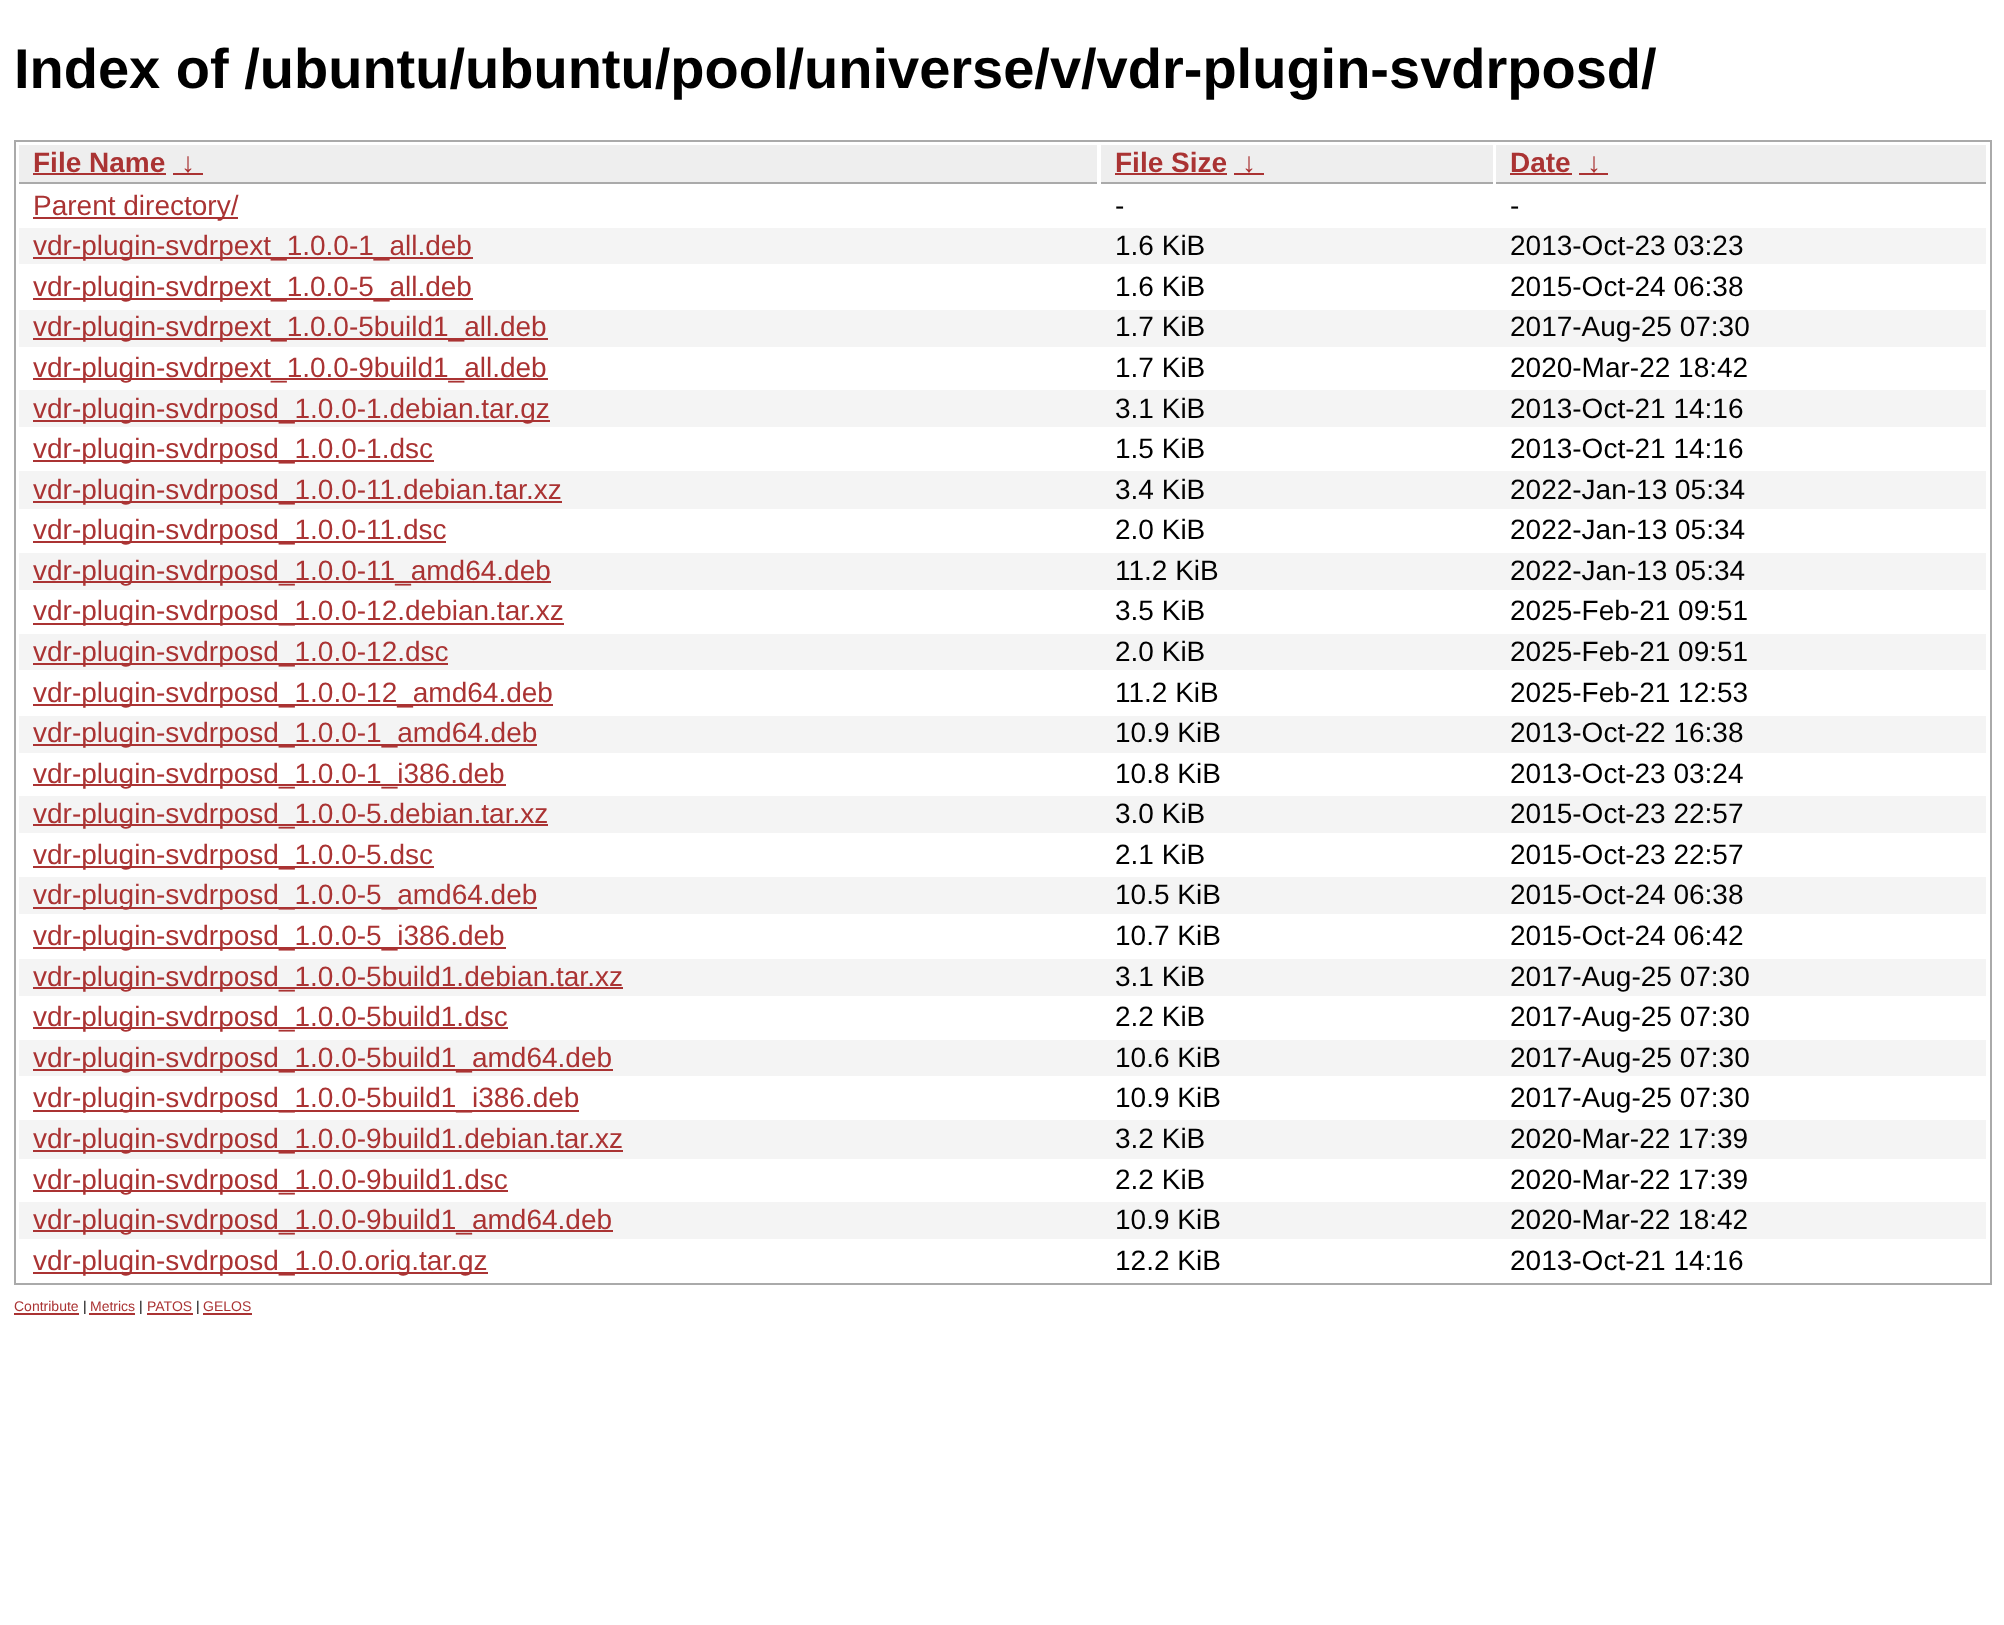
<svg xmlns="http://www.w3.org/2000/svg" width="2004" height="1625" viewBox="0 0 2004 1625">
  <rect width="100%" height="100%" fill="#fff"/>
  <path d="M15 141h1976v1143H15z" fill="none" stroke="#aaa" stroke-width="2"/>
  <path d="M19 145h1078v37H19z" fill="#eee"/>
  <path d="M19 182h1078v2H19z" fill="#aaa"/>
  <path d="M33 173h133v2H33z" fill="#a33"/>
  <path d="M173 173h30v2H173z" fill="#a33"/>
  <path d="M1101 145h392v37H1101z" fill="#eee"/>
  <path d="M1101 182h392v2H1101z" fill="#aaa"/>
  <path d="M1115 173h112v2H1115z" fill="#a33"/>
  <path d="M1234 173h30v2H1234z" fill="#a33"/>
  <path d="M1496 145h490v37H1496z" fill="#eee"/>
  <path d="M1496 182h490v2H1496z" fill="#aaa"/>
  <path d="M1510 173h62v2H1510z" fill="#a33"/>
  <path d="M1579 173h29v2H1579z" fill="#a33"/>
  <path d="M33 217h205v2H33z" fill="#a33"/>
  <path d="M19 228h1967v36H19z" fill="#f4f4f4"/>
  <path d="M33 257h440v2H33z" fill="#a33"/>
  <path d="M33 298h440v2H33z" fill="#a33"/>
  <path d="M19 310h1967v37H19z" fill="#f4f4f4"/>
  <path d="M33 338h515v2H33z" fill="#a33"/>
  <path d="M33 378h515v2H33z" fill="#a33"/>
  <path d="M19 390h1967v37H19z" fill="#f4f4f4"/>
  <path d="M33 420h517v2H33z" fill="#a33"/>
  <path d="M33 460h401v2H33z" fill="#a33"/>
  <path d="M19 471h1967v38H19z" fill="#f4f4f4"/>
  <path d="M33 501h529v2H33z" fill="#a33"/>
  <path d="M33 541h413v2H33z" fill="#a33"/>
  <path d="M19 553h1967v37H19z" fill="#f4f4f4"/>
  <path d="M33 581h518v2H33z" fill="#a33"/>
  <path d="M33 623h531v2H33z" fill="#a33"/>
  <path d="M19 634h1967v36H19z" fill="#f4f4f4"/>
  <path d="M33 663h415v2H33z" fill="#a33"/>
  <path d="M33 704h520v2H33z" fill="#a33"/>
  <path d="M19 716h1967v37H19z" fill="#f4f4f4"/>
  <path d="M33 744h504v2H33z" fill="#a33"/>
  <path d="M33 784h473v2H33z" fill="#a33"/>
  <path d="M19 796h1967v37H19z" fill="#f4f4f4"/>
  <path d="M33 824h515v2H33z" fill="#a33"/>
  <path d="M33 866h401v2H33z" fill="#a33"/>
  <path d="M19 877h1967v37H19z" fill="#f4f4f4"/>
  <path d="M33 907h504v2H33z" fill="#a33"/>
  <path d="M33 947h473v2H33z" fill="#a33"/>
  <path d="M19 959h1967v37H19z" fill="#f4f4f4"/>
  <path d="M33 987h590v2H33z" fill="#a33"/>
  <path d="M33 1027h475v2H33z" fill="#a33"/>
  <path d="M19 1040h1967v36H19z" fill="#f4f4f4"/>
  <path d="M33 1069h580v2H33z" fill="#a33"/>
  <path d="M33 1110h546v2H33z" fill="#a33"/>
  <path d="M19 1120h1967v39H19z" fill="#f4f4f4"/>
  <path d="M33 1150h590v2H33z" fill="#a33"/>
  <path d="M33 1190h475v2H33z" fill="#a33"/>
  <path d="M19 1202h1967v37H19z" fill="#f4f4f4"/>
  <path d="M33 1230h580v2H33z" fill="#a33"/>
  <path d="M33 1272h455v2H33z" fill="#a33"/>
  <path d="M14 1313h65v2H14z" fill="#a33"/>
  <path d="M89 1313h46v2H89z" fill="#a33"/>
  <path d="M147 1313h46v2H147z" fill="#a33"/>
  <path d="M203 1313h49v2H203z" fill="#a33"/>
  <text x="14" y="88" font-family="Liberation Sans" font-size="56" font-weight="bold" fill="#000">Index of /ubuntu/ubuntu/pool/universe/v/vdr-plugin-svdrposd/</text>
  <g font-family="Liberation Sans" font-size="28" font-weight="bold" fill="#a33">
    <text x="33" y="172">File Name</text>
    <text x="181" y="172">↓</text>
    <text x="1115" y="172">File Size</text>
    <text x="1242" y="172">↓</text>
    <text x="1510" y="172">Date</text>
    <text x="1587" y="172">↓</text>
  </g>
  <text x="33" y="215" font-family="Liberation Sans" font-size="28" fill="#a33">Parent directory/</text>
  <g font-family="Liberation Sans" font-size="28" fill="#000">
    <text x="1115" y="215">-</text>
    <text x="1510" y="215">-</text>
  </g>
  <text x="33" y="255" font-family="Liberation Sans" font-size="28" fill="#a33">vdr-plugin-svdrpext_1.0.0-1_all.deb</text>
  <g font-family="Liberation Sans" font-size="28" fill="#000">
    <text x="1115" y="255">1.6 KiB</text>
    <text x="1510" y="255">2013-Oct-23 03:23</text>
  </g>
  <text x="33" y="296" font-family="Liberation Sans" font-size="28" fill="#a33">vdr-plugin-svdrpext_1.0.0-5_all.deb</text>
  <g font-family="Liberation Sans" font-size="28" fill="#000">
    <text x="1115" y="296">1.6 KiB</text>
    <text x="1510" y="296">2015-Oct-24 06:38</text>
  </g>
  <text x="33" y="336" font-family="Liberation Sans" font-size="28" fill="#a33">vdr-plugin-svdrpext_1.0.0-5build1_all.deb</text>
  <g font-family="Liberation Sans" font-size="28" fill="#000">
    <text x="1115" y="336">1.7 KiB</text>
    <text x="1510" y="336">2017-Aug-25 07:30</text>
  </g>
  <text x="33" y="377" font-family="Liberation Sans" font-size="28" fill="#a33">vdr-plugin-svdrpext_1.0.0-9build1_all.deb</text>
  <g font-family="Liberation Sans" font-size="28" fill="#000">
    <text x="1115" y="377">1.7 KiB</text>
    <text x="1510" y="377">2020-Mar-22 18:42</text>
  </g>
  <text x="33" y="418" font-family="Liberation Sans" font-size="28" fill="#a33">vdr-plugin-svdrposd_1.0.0-1.debian.tar.gz</text>
  <g font-family="Liberation Sans" font-size="28" fill="#000">
    <text x="1115" y="418">3.1 KiB</text>
    <text x="1510" y="418">2013-Oct-21 14:16</text>
  </g>
  <text x="33" y="458" font-family="Liberation Sans" font-size="28" fill="#a33">vdr-plugin-svdrposd_1.0.0-1.dsc</text>
  <g font-family="Liberation Sans" font-size="28" fill="#000">
    <text x="1115" y="458">1.5 KiB</text>
    <text x="1510" y="458">2013-Oct-21 14:16</text>
  </g>
  <text x="33" y="499" font-family="Liberation Sans" font-size="28" fill="#a33">vdr-plugin-svdrposd_1.0.0-11.debian.tar.xz</text>
  <g font-family="Liberation Sans" font-size="28" fill="#000">
    <text x="1115" y="499">3.4 KiB</text>
    <text x="1510" y="499">2022-Jan-13 05:34</text>
  </g>
  <text x="33" y="539" font-family="Liberation Sans" font-size="28" fill="#a33">vdr-plugin-svdrposd_1.0.0-11.dsc</text>
  <g font-family="Liberation Sans" font-size="28" fill="#000">
    <text x="1115" y="539">2.0 KiB</text>
    <text x="1510" y="539">2022-Jan-13 05:34</text>
  </g>
  <text x="33" y="580" font-family="Liberation Sans" font-size="28" fill="#a33">vdr-plugin-svdrposd_1.0.0-11_amd64.deb</text>
  <g font-family="Liberation Sans" font-size="28" fill="#000">
    <text x="1115" y="580">11.2 KiB</text>
    <text x="1510" y="580">2022-Jan-13 05:34</text>
  </g>
  <text x="33" y="620" font-family="Liberation Sans" font-size="28" fill="#a33">vdr-plugin-svdrposd_1.0.0-12.debian.tar.xz</text>
  <g font-family="Liberation Sans" font-size="28" fill="#000">
    <text x="1115" y="620">3.5 KiB</text>
    <text x="1510" y="620">2025-Feb-21 09:51</text>
  </g>
  <text x="33" y="661" font-family="Liberation Sans" font-size="28" fill="#a33">vdr-plugin-svdrposd_1.0.0-12.dsc</text>
  <g font-family="Liberation Sans" font-size="28" fill="#000">
    <text x="1115" y="661">2.0 KiB</text>
    <text x="1510" y="661">2025-Feb-21 09:51</text>
  </g>
  <text x="33" y="702" font-family="Liberation Sans" font-size="28" fill="#a33">vdr-plugin-svdrposd_1.0.0-12_amd64.deb</text>
  <g font-family="Liberation Sans" font-size="28" fill="#000">
    <text x="1115" y="702">11.2 KiB</text>
    <text x="1510" y="702">2025-Feb-21 12:53</text>
  </g>
  <text x="33" y="742" font-family="Liberation Sans" font-size="28" fill="#a33">vdr-plugin-svdrposd_1.0.0-1_amd64.deb</text>
  <g font-family="Liberation Sans" font-size="28" fill="#000">
    <text x="1115" y="742">10.9 KiB</text>
    <text x="1510" y="742">2013-Oct-22 16:38</text>
  </g>
  <text x="33" y="783" font-family="Liberation Sans" font-size="28" fill="#a33">vdr-plugin-svdrposd_1.0.0-1_i386.deb</text>
  <g font-family="Liberation Sans" font-size="28" fill="#000">
    <text x="1115" y="783">10.8 KiB</text>
    <text x="1510" y="783">2013-Oct-23 03:24</text>
  </g>
  <text x="33" y="823" font-family="Liberation Sans" font-size="28" fill="#a33">vdr-plugin-svdrposd_1.0.0-5.debian.tar.xz</text>
  <g font-family="Liberation Sans" font-size="28" fill="#000">
    <text x="1115" y="823">3.0 KiB</text>
    <text x="1510" y="823">2015-Oct-23 22:57</text>
  </g>
  <text x="33" y="864" font-family="Liberation Sans" font-size="28" fill="#a33">vdr-plugin-svdrposd_1.0.0-5.dsc</text>
  <g font-family="Liberation Sans" font-size="28" fill="#000">
    <text x="1115" y="864">2.1 KiB</text>
    <text x="1510" y="864">2015-Oct-23 22:57</text>
  </g>
  <text x="33" y="904" font-family="Liberation Sans" font-size="28" fill="#a33">vdr-plugin-svdrposd_1.0.0-5_amd64.deb</text>
  <g font-family="Liberation Sans" font-size="28" fill="#000">
    <text x="1115" y="904">10.5 KiB</text>
    <text x="1510" y="904">2015-Oct-24 06:38</text>
  </g>
  <text x="33" y="945" font-family="Liberation Sans" font-size="28" fill="#a33">vdr-plugin-svdrposd_1.0.0-5_i386.deb</text>
  <g font-family="Liberation Sans" font-size="28" fill="#000">
    <text x="1115" y="945">10.7 KiB</text>
    <text x="1510" y="945">2015-Oct-24 06:42</text>
  </g>
  <text x="33" y="986" font-family="Liberation Sans" font-size="28" fill="#a33">vdr-plugin-svdrposd_1.0.0-5build1.debian.tar.xz</text>
  <g font-family="Liberation Sans" font-size="28" fill="#000">
    <text x="1115" y="986">3.1 KiB</text>
    <text x="1510" y="986">2017-Aug-25 07:30</text>
  </g>
  <text x="33" y="1026" font-family="Liberation Sans" font-size="28" fill="#a33">vdr-plugin-svdrposd_1.0.0-5build1.dsc</text>
  <g font-family="Liberation Sans" font-size="28" fill="#000">
    <text x="1115" y="1026">2.2 KiB</text>
    <text x="1510" y="1026">2017-Aug-25 07:30</text>
  </g>
  <text x="33" y="1067" font-family="Liberation Sans" font-size="28" fill="#a33">vdr-plugin-svdrposd_1.0.0-5build1_amd64.deb</text>
  <g font-family="Liberation Sans" font-size="28" fill="#000">
    <text x="1115" y="1067">10.6 KiB</text>
    <text x="1510" y="1067">2017-Aug-25 07:30</text>
  </g>
  <text x="33" y="1107" font-family="Liberation Sans" font-size="28" fill="#a33">vdr-plugin-svdrposd_1.0.0-5build1_i386.deb</text>
  <g font-family="Liberation Sans" font-size="28" fill="#000">
    <text x="1115" y="1107">10.9 KiB</text>
    <text x="1510" y="1107">2017-Aug-25 07:30</text>
  </g>
  <text x="33" y="1148" font-family="Liberation Sans" font-size="28" fill="#a33">vdr-plugin-svdrposd_1.0.0-9build1.debian.tar.xz</text>
  <g font-family="Liberation Sans" font-size="28" fill="#000">
    <text x="1115" y="1148">3.2 KiB</text>
    <text x="1510" y="1148">2020-Mar-22 17:39</text>
  </g>
  <text x="33" y="1189" font-family="Liberation Sans" font-size="28" fill="#a33">vdr-plugin-svdrposd_1.0.0-9build1.dsc</text>
  <g font-family="Liberation Sans" font-size="28" fill="#000">
    <text x="1115" y="1189">2.2 KiB</text>
    <text x="1510" y="1189">2020-Mar-22 17:39</text>
  </g>
  <text x="33" y="1229" font-family="Liberation Sans" font-size="28" fill="#a33">vdr-plugin-svdrposd_1.0.0-9build1_amd64.deb</text>
  <g font-family="Liberation Sans" font-size="28" fill="#000">
    <text x="1115" y="1229">10.9 KiB</text>
    <text x="1510" y="1229">2020-Mar-22 18:42</text>
  </g>
  <text x="33" y="1270" font-family="Liberation Sans" font-size="28" fill="#a33">vdr-plugin-svdrposd_1.0.0.orig.tar.gz</text>
  <g font-family="Liberation Sans" font-size="28" fill="#000">
    <text x="1115" y="1270">12.2 KiB</text>
    <text x="1510" y="1270">2013-Oct-21 14:16</text>
  </g>
  <text x="14" y="1311" font-family="Liberation Sans" font-size="14" fill="#a33">Contribute</text>
  <text x="83" y="1311" font-family="Liberation Sans" font-size="14" fill="#000">|</text>
  <text x="90" y="1311" font-family="Liberation Sans" font-size="14" fill="#a33">Metrics</text>
  <text x="139" y="1311" font-family="Liberation Sans" font-size="14" fill="#000">|</text>
  <text x="147" y="1311" font-family="Liberation Sans" font-size="14" fill="#a33">PATOS</text>
  <text x="196" y="1311" font-family="Liberation Sans" font-size="14" fill="#000">|</text>
  <text x="203" y="1311" font-family="Liberation Sans" font-size="14" fill="#a33">GELOS</text>
</svg>
